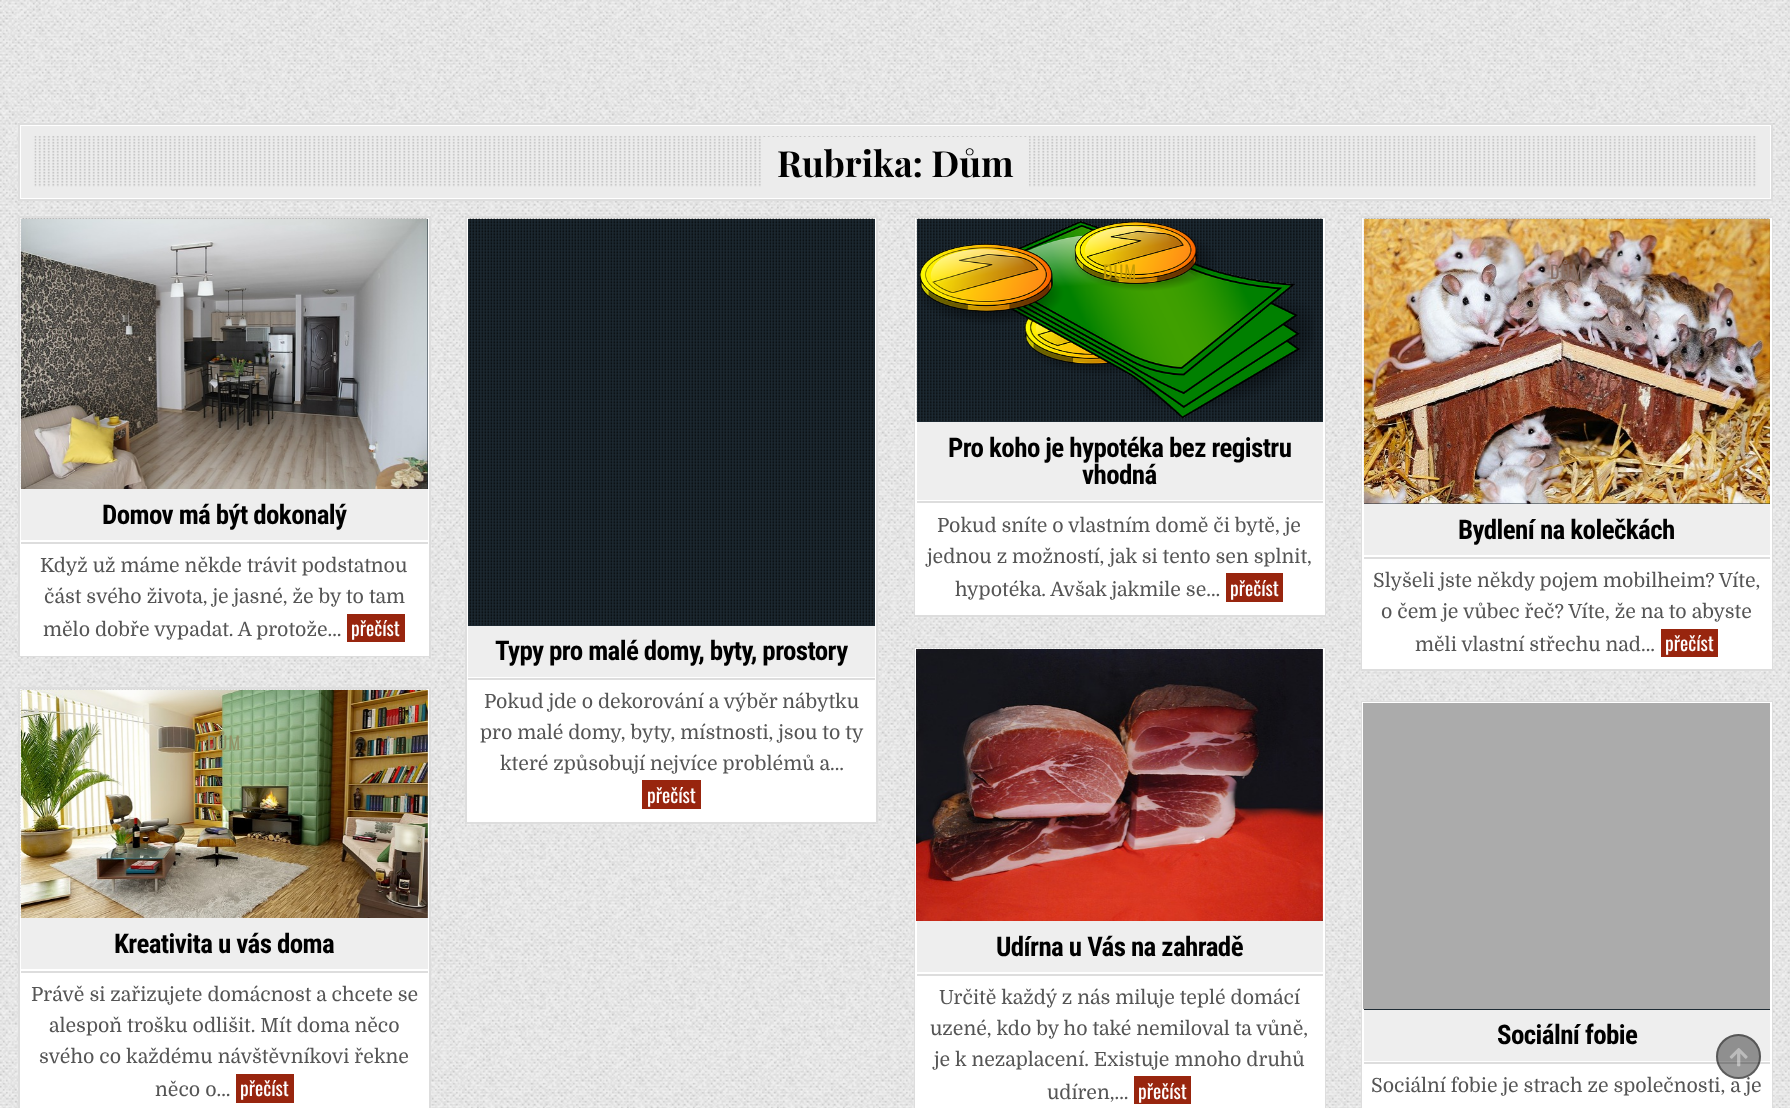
<svg xmlns="http://www.w3.org/2000/svg" width="1790" height="1108" viewBox="0 0 1790 1108">
  <defs>
    <clipPath id="clip1"><path d="M20 125h1752v75H20z"/></clipPath>
  </defs>
  <rect width="100%" height="100%" fill="#fff"/>
  <image x="0" y="0" width="1790" height="1108" href="img/1.png"/>
  <path d="M21 126h1749v72H21z" fill="#ececec"/>
  <g clip-path="url(#clip1)">
    <path d="M-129-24H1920V348H-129ZM18 123H1770V198H18Z" fill="#fff" fill-rule="evenodd"/>
    <path d="M-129-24H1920V348H-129ZM21 126H1773V201H21Z" fill="#fff" fill-rule="evenodd"/>
  </g>
  <path d="M19 124h1753v76H19z" fill="none" stroke="#ddd" stroke-width="2"/>
  <image x="34" y="136" width="1722" height="51" href="img/2.png"/>
  <path d="M763 137h266v50H763z" fill="#ececec"/>
  <path d="M22 540h405v114H22z" fill="#fff"/>
  <path d="M19 217h411v439H19z" fill="none" stroke="#ddd" stroke-width="2"/>
  <path d="M21 219h407v436H21z" fill="none" stroke="#fff" stroke-width="2"/>
  <path d="M427 219h1v270H427z" fill="#1e2b34"/>
  <image x="20" y="218" width="408" height="270" href="img/3.png"/>
  <image x="21" y="219" width="407" height="270" href="img/4.png"/>
  <path d="M21 489h407v51H21z" fill="#eee"/>
  <path d="M21 542h407v2H21z" fill="#ddd"/>
  <path d="M347 614h58v28H347z" fill="#98250e"/>
  <path d="M917 500h406v113H917z" fill="#fff"/>
  <path d="M915 217h410v399H915z" fill="none" stroke="#ddd" stroke-width="2"/>
  <path d="M916 219h408v395H916z" fill="none" stroke="#fff" stroke-width="2"/>
  <path d="M917 219h406v203H917z" fill="#1e2b34"/>
  <image x="916" y="218" width="407" height="204" href="img/5.png"/>
  <image x="919" y="220" width="395" height="199" href="img/6.png"/>
  <path d="M917 422h406v78H917z" fill="#eee"/>
  <path d="M917 501h406v2H917z" fill="#ddd"/>
  <path d="M1226 573h57v29H1226z" fill="#98250e"/>
  <path d="M1364 555h406v112H1364z" fill="#fff"/>
  <path d="M1362 217h410v453H1362z" fill="none" stroke="#ddd" stroke-width="2"/>
  <path d="M1363 219h408v449H1363z" fill="none" stroke="#fff" stroke-width="2"/>
  <path d="M1364 219h406v285H1364z" fill="#1e2b34"/>
  <image x="1363" y="218" width="407" height="285" href="img/7.png"/>
  <image x="1364" y="219" width="406" height="285" href="img/8.png"/>
  <path d="M1364 504h406v51H1364z" fill="#eee"/>
  <path d="M1364 557h406v2H1364z" fill="#ddd"/>
  <path d="M1661 629h57v28H1661z" fill="#98250e"/>
  <path d="M19 688h411v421H19z" fill="#fff" stroke="#ddd" stroke-width="2"/>
  <image x="20" y="689" width="407" height="229" href="img/9.png"/>
  <image x="21" y="690" width="407" height="228" href="img/10.png"/>
  <path d="M21 918h407v51H21z" fill="#eee"/>
  <path d="M21 971h407v2H21z" fill="#ddd"/>
  <path d="M236 1074h58v29H236z" fill="#98250e"/>
  <path d="M466 217h411v606H466z" fill="#fff" stroke="#ddd" stroke-width="2"/>
  <path d="M468 219h407v407H468z" fill="#1e2b34"/>
  <image x="468" y="218" width="407" height="408" href="img/11.png"/>
  <path d="M468 626h407v51H468z" fill="#eee"/>
  <path d="M468 678h407v2H468z" fill="#ddd"/>
  <path d="M642 780h59v29H642z" fill="#98250e"/>
  <path d="M917 650h406v458H917z" fill="#fff"/>
  <path d="M915 648h410v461H915z" fill="none" stroke="#ddd" stroke-width="2"/>
  <path d="M916 649h408v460H916z" fill="none" stroke="#fff" stroke-width="2"/>
  <image x="916" y="648" width="407" height="273" href="img/12.png"/>
  <image x="916" y="649" width="407" height="272" href="img/13.png"/>
  <path d="M917 921h406v51H917z" fill="#eee"/>
  <path d="M917 974h406v2H917z" fill="#ddd"/>
  <path d="M1134 1076h57v28H1134z" fill="#98250e"/>
  <path d="M1364 1061h406v47H1364z" fill="#fff"/>
  <path d="M1362 702h410v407H1362z" fill="none" stroke="#ddd" stroke-width="2"/>
  <path d="M1363 703h408v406H1363z" fill="none" stroke="#fff" stroke-width="2"/>
  <path d="M1364 1009h406v1H1364z" fill="#1e2b34"/>
  <path d="M1363 703h407v306H1363z" fill="#ababab"/>
  <path d="M1364 1010h406v51H1364z" fill="#eee"/>
  <path d="M1364 1062h406v2H1364z" fill="#ddd"/>
  <text x="777" y="177" font-family="Playfair Display" font-size="36" font-weight="bold" fill="#000">Rubrika: Dům</text>
  <text x="102" y="524" font-family="Roboto Condensed" font-size="27" font-weight="bold" letter-spacing="-0.6" fill="#000">Domov má být dokonalý</text>
  <g font-family="Domine" font-size="19.5" fill="#555">
    <text x="40" y="572">Když už máme někde trávit podstatnou</text>
    <text x="44" y="603">část svého života, je jasné, že by to tam</text>
    <text x="43" y="636">mělo dobře vypadat. A protože…</text>
  </g>
  <text x="351" y="636" font-family="Oswald" font-size="19.5" fill="#fff">přečíst</text>
  <text x="1103" y="279" font-family="Oswald" font-size="18" letter-spacing="1" fill="#c59d05">DŮM</text>
  <g font-family="Roboto Condensed" font-size="27" font-weight="bold" letter-spacing="-0.6" fill="#000">
    <text x="948" y="457">Pro koho je hypotéka bez registru</text>
    <text x="1082" y="484">vhodná</text>
  </g>
  <g font-family="Domine" font-size="19.5" fill="#555">
    <text x="937" y="532">Pokud sníte o vlastním domě či bytě, je</text>
    <text x="927" y="563">jednou z možností, jak si tento sen splnit,</text>
    <text x="955" y="596">hypotéka. Avšak jakmile se…</text>
  </g>
  <text x="1230" y="596" font-family="Oswald" font-size="19.5" fill="#fff">přečíst</text>
  <text x="1550" y="279" font-family="Oswald" font-size="18" letter-spacing="1" fill="#897167">DŮM</text>
  <text x="1458" y="539" font-family="Roboto Condensed" font-size="27" font-weight="bold" letter-spacing="-0.6" fill="#000">Bydlení na kolečkách</text>
  <g font-family="Domine" font-size="19.5" fill="#555">
    <text x="1373" y="587">Slyšeli jste někdy pojem mobilheim? Víte,</text>
    <text x="1381" y="618">o čem je vůbec řeč? Víte, že na to abyste</text>
    <text x="1415" y="651">měli vlastní střechu nad…</text>
  </g>
  <text x="1665" y="651" font-family="Oswald" font-size="19.5" fill="#fff">přečíst</text>
  <text x="207" y="750" font-family="Oswald" font-size="18" letter-spacing="1" fill="#939267">DŮM</text>
  <text x="114" y="953" font-family="Roboto Condensed" font-size="27" font-weight="bold" letter-spacing="-0.6" fill="#000">Kreativita u vás doma</text>
  <g font-family="Domine" font-size="19.5" fill="#555">
    <text x="31" y="1001">Právě si zařizujete domácnost a chcete se</text>
    <text x="49" y="1032">alespoň trošku odlišit. Mít doma něco</text>
    <text x="39" y="1063">svého co každému návštěvníkovi řekne</text>
    <text x="155" y="1096">něco o…</text>
  </g>
  <text x="240" y="1096" font-family="Oswald" font-size="19.5" fill="#fff">přečíst</text>
  <text x="495" y="660" font-family="Roboto Condensed" font-size="27" font-weight="bold" letter-spacing="-0.6" fill="#000">Typy pro malé domy, byty, prostory</text>
  <g font-family="Domine" font-size="19.5" fill="#555">
    <text x="484" y="708">Pokud jde o dekorování a výběr nábytku</text>
    <text x="480" y="739">pro malé domy, byty, místnosti, jsou to ty</text>
    <text x="500" y="770">které způsobují nejvíce problémů a…</text>
  </g>
  <text x="647" y="803" font-family="Oswald" font-size="19.5" fill="#fff">přečíst</text>
  <text x="996" y="956" font-family="Roboto Condensed" font-size="27" font-weight="bold" letter-spacing="-0.6" fill="#000">Udírna u Vás na zahradě</text>
  <g font-family="Domine" font-size="19.5" fill="#555">
    <text x="939" y="1004">Určitě každý z nás miluje teplé domácí</text>
    <text x="930" y="1035">uzené, kdo by ho také nemiloval ta vůně,</text>
    <text x="934" y="1066">je k nezaplacení. Existuje mnoho druhů</text>
    <text x="1047" y="1099">udíren,…</text>
  </g>
  <text x="1138" y="1099" font-family="Oswald" font-size="19.5" fill="#fff">přečíst</text>
  <text x="1497" y="1044" font-family="Roboto Condensed" font-size="27" font-weight="bold" letter-spacing="-0.6" fill="#000">Sociální fobie</text>
  <text x="1371" y="1092" font-family="Domine" font-size="19.5" fill="#555">Sociální fobie je strach ze společnosti, a je</text>
  <circle cx="1738.5" cy="1056.5" r="22.5" fill="#00000066"/>
  <circle cx="1738.5" cy="1056.5" r="21.5" fill="none" stroke="#00000066" stroke-width="2"/>
  <image x="1729" y="1048" width="19" height="19" href="img/14.png"/>
</svg>
